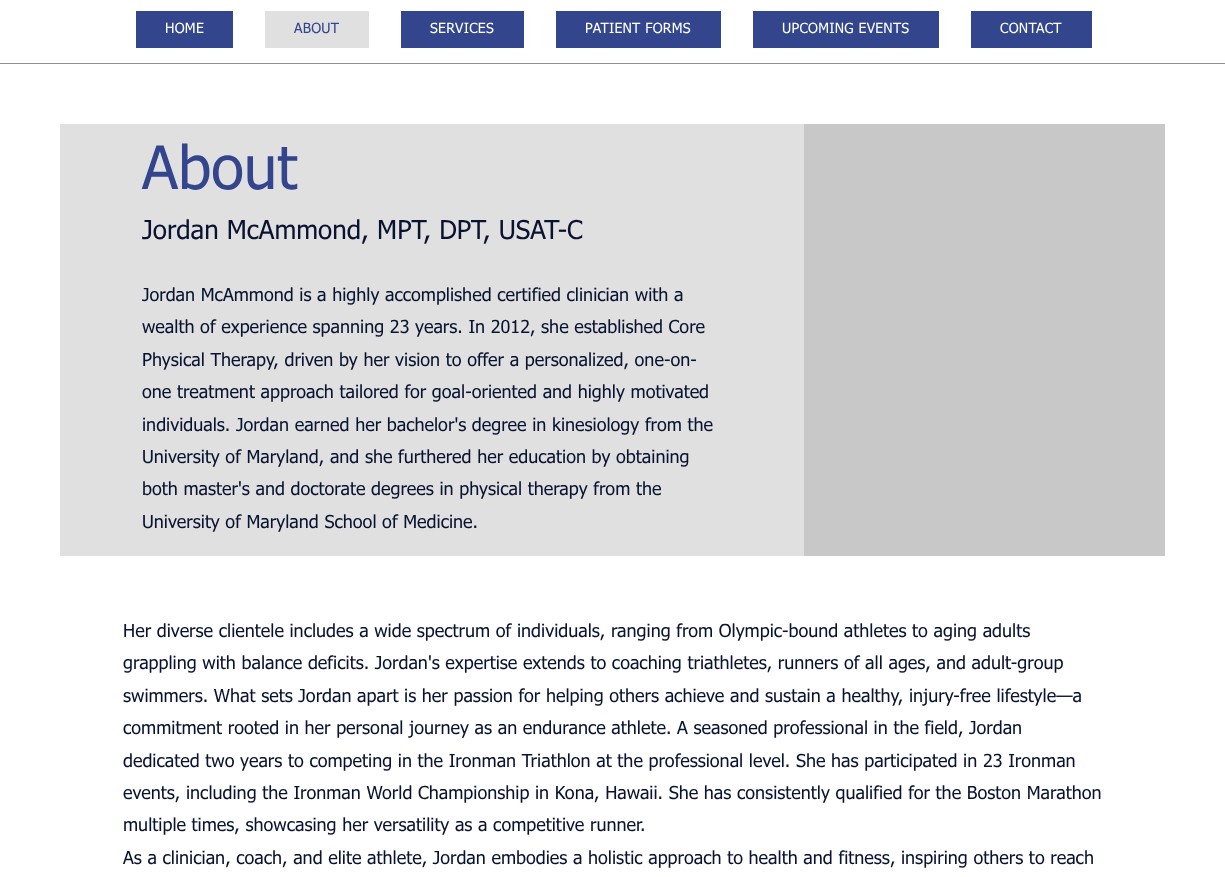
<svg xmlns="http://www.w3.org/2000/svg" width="1225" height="877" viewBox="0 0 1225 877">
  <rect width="100%" height="100%" fill="#fff"/>
  <path d="M136 11h97v37H136z" fill="#32458d"/>
  <path d="M265 11h104v37H265z" fill="#e0e0e0"/>
  <path d="M401 11h123v37H401z" fill="#32458d"/>
  <path d="M556 11h165v37H556z" fill="#32458d"/>
  <path d="M753 11h186v37H753z" fill="#32458d"/>
  <path d="M971 11h121v37H971z" fill="#32458d"/>
  <path d="M0 63h1225v1H0z" fill="#8e8e8b"/>
  <path d="M60 124h744v432H60z" fill="#e0e0e0"/>
  <path d="M804 124h361v432H804z" fill="#c8c8c8"/>
  <text x="165" y="33" font-family="tahoma" font-size="14" letter-spacing="0.25" fill="#fff">HOME</text>
  <text x="294" y="33" font-family="tahoma" font-size="14" letter-spacing="0.25" fill="#32458d">ABOUT</text>
  <g font-family="tahoma" font-size="14" letter-spacing="0.25" fill="#fff">
    <text x="430" y="33">SERVICES</text>
    <text x="585" y="33">PATIENT FORMS</text>
    <text x="782" y="33">UPCOMING EVENTS</text>
    <text x="1000" y="33">CONTACT</text>
  </g>
  <text x="142" y="189" font-family="tahoma" font-size="60" fill="#32458d">About</text>
  <text x="142" y="239" font-family="tahoma" font-size="26" fill="#091230">Jordan McAmmond, MPT, DPT, USAT-C</text>
  <g font-family="tahoma" font-size="18" fill="#091230">
    <text x="142" y="301">Jordan McAmmond is a highly accomplished certified clinician with a</text>
    <text x="142" y="333">wealth of experience spanning 23 years. In 2012, she established Core</text>
    <text x="142" y="366">Physical Therapy, driven by her vision to offer a personalized, one-on-</text>
    <text x="142" y="398">one treatment approach tailored for goal-oriented and highly motivated</text>
    <text x="142" y="431">individuals. Jordan earned her bachelor's degree in kinesiology from the</text>
    <text x="142" y="463">University of Maryland, and she furthered her education by obtaining</text>
    <text x="142" y="495">both master's and doctorate degrees in physical therapy from the</text>
    <text x="142" y="528">University of Maryland School of Medicine.</text>
    <text x="123" y="637">Her diverse clientele includes a wide spectrum of individuals, ranging from Olympic-bound athletes to aging adults</text>
    <text x="123" y="669">grappling with balance deficits. Jordan's expertise extends to coaching triathletes, runners of all ages, and adult-group</text>
    <text x="123" y="702">swimmers. What sets Jordan apart is her passion for helping others achieve and sustain a healthy, injury-free lifestyle—a</text>
    <text x="123" y="734">commitment rooted in her personal journey as an endurance athlete. A seasoned professional in the field, Jordan</text>
    <text x="123" y="767">dedicated two years to competing in the Ironman Triathlon at the professional level. She has participated in 23 Ironman</text>
    <text x="123" y="799">events, including the Ironman World Championship in Kona, Hawaii. She has consistently qualified for the Boston Marathon</text>
    <text x="123" y="831">multiple times, showcasing her versatility as a competitive runner.</text>
    <text x="123" y="864">As a clinician, coach, and elite athlete, Jordan embodies a holistic approach to health and fitness, inspiring others to reach</text>
  </g>
</svg>
